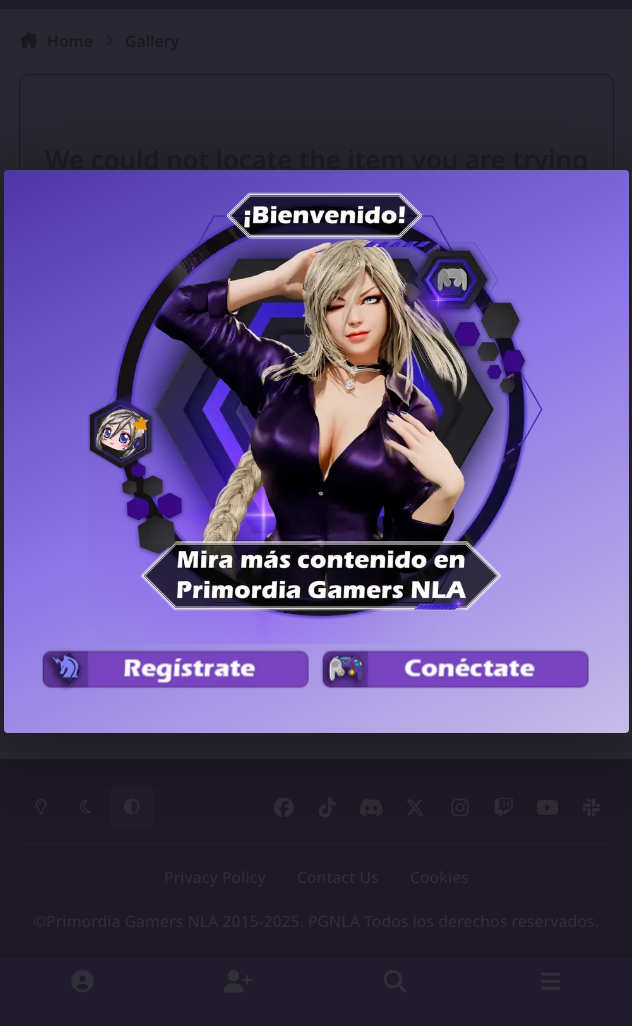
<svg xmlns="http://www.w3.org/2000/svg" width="632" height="1026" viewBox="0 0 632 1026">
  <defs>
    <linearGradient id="g1" gradientUnits="userSpaceOnUse" x1="145" y1="101" x2="487" y2="802"><stop offset="0" stop-color="#4e36a7"/><stop offset="0.5" stop-color="#8e77e6"/><stop offset="1" stop-color="#c6bbe8"/></linearGradient>
  </defs>
  <rect width="100%" height="100%" fill="#292731"/>
  <path d="M0 0h632v8H0z" fill="#211b2d"/>
  <path d="M0 8h632v1H0z" fill="#201b2b"/>
  <image x="20" y="32" width="18" height="17" href="img/1.png"/>
  <image x="106" y="34" width="7" height="12" href="img/2.png"/>
  <rect x="19.5" y="74.5" width="594" height="291" rx="9.5" fill="none" stroke="#1e1827"/>
  <path d="M0 759h632v197H0z" fill="#1e1827"/>
  <image x="35" y="798" width="12" height="17" href="img/3.png"/>
  <image x="80" y="799" width="12" height="15" href="img/4.png"/>
  <rect x="110" y="785" width="44" height="45" rx="5" fill="#211c2a"/>
  <image x="123" y="798" width="17" height="17" href="img/5.png"/>
  <image x="274" y="798" width="20" height="20" href="img/6.png"/>
  <image x="318" y="797" width="19" height="21" href="img/7.png"/>
  <image x="359" y="798" width="24" height="19" href="img/8.png"/>
  <image x="406" y="799" width="18" height="17" href="img/9.png"/>
  <image x="451" y="798" width="18" height="19" href="img/10.png"/>
  <image x="494" y="798" width="19" height="20" href="img/11.png"/>
  <image x="536" y="800" width="23" height="15" href="img/12.png"/>
  <image x="583" y="798" width="17" height="19" href="img/13.png"/>
  <path d="M19 844h595v1H19z" fill="#231e2b"/>
  <rect x="4" y="176" width="625" height="563" rx="4" fill="#00000066" filter="blur(34.5px)"/>
  <path d="M0 956V958H632V1025H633V956Z" fill="#1d1826"/>
  <path d="M0 958h632v68H0z" fill="#211b2d"/>
  <image x="71" y="970" width="23" height="23" href="img/17.png"/>
  <image x="224" y="970" width="28" height="23" href="img/18.png"/>
  <image x="384" y="970" width="22" height="23" href="img/19.png"/>
  <image x="541" y="972" width="19" height="18" href="img/20.png"/>
  <g font-family="Noto Sans" font-size="15.75" font-weight="600" fill="#1a1821">
    <text x="47" y="47">Home</text>
    <text x="125" y="47">Gallery</text>
  </g>
  <text x="45" y="169" font-family="Noto Sans" font-size="25.75" font-weight="600" fill="#1a1821">We could not locate the item you are trying</text>
  <g font-family="Noto Sans" font-size="15.75" font-weight="500" fill="#2f2c35">
    <text x="164" y="883">Privacy Policy</text>
    <text x="297" y="883">Contact Us</text>
    <text x="410" y="883">Cookies</text>
    <text x="33" y="927">©Primordia Gamers NLA 2015-2025. PGNLA Todos los derechos reservados.</text>
  </g>
  <rect x="4" y="170" width="625" height="563" rx="4" fill="url(#g1)"/>
  <image x="87" y="192" width="456" height="452" href="img/14.png"/>
  <image x="41" y="648" width="268" height="43" href="img/15.png"/>
  <image x="320" y="649" width="269" height="40" href="img/16.png"/>
</svg>
